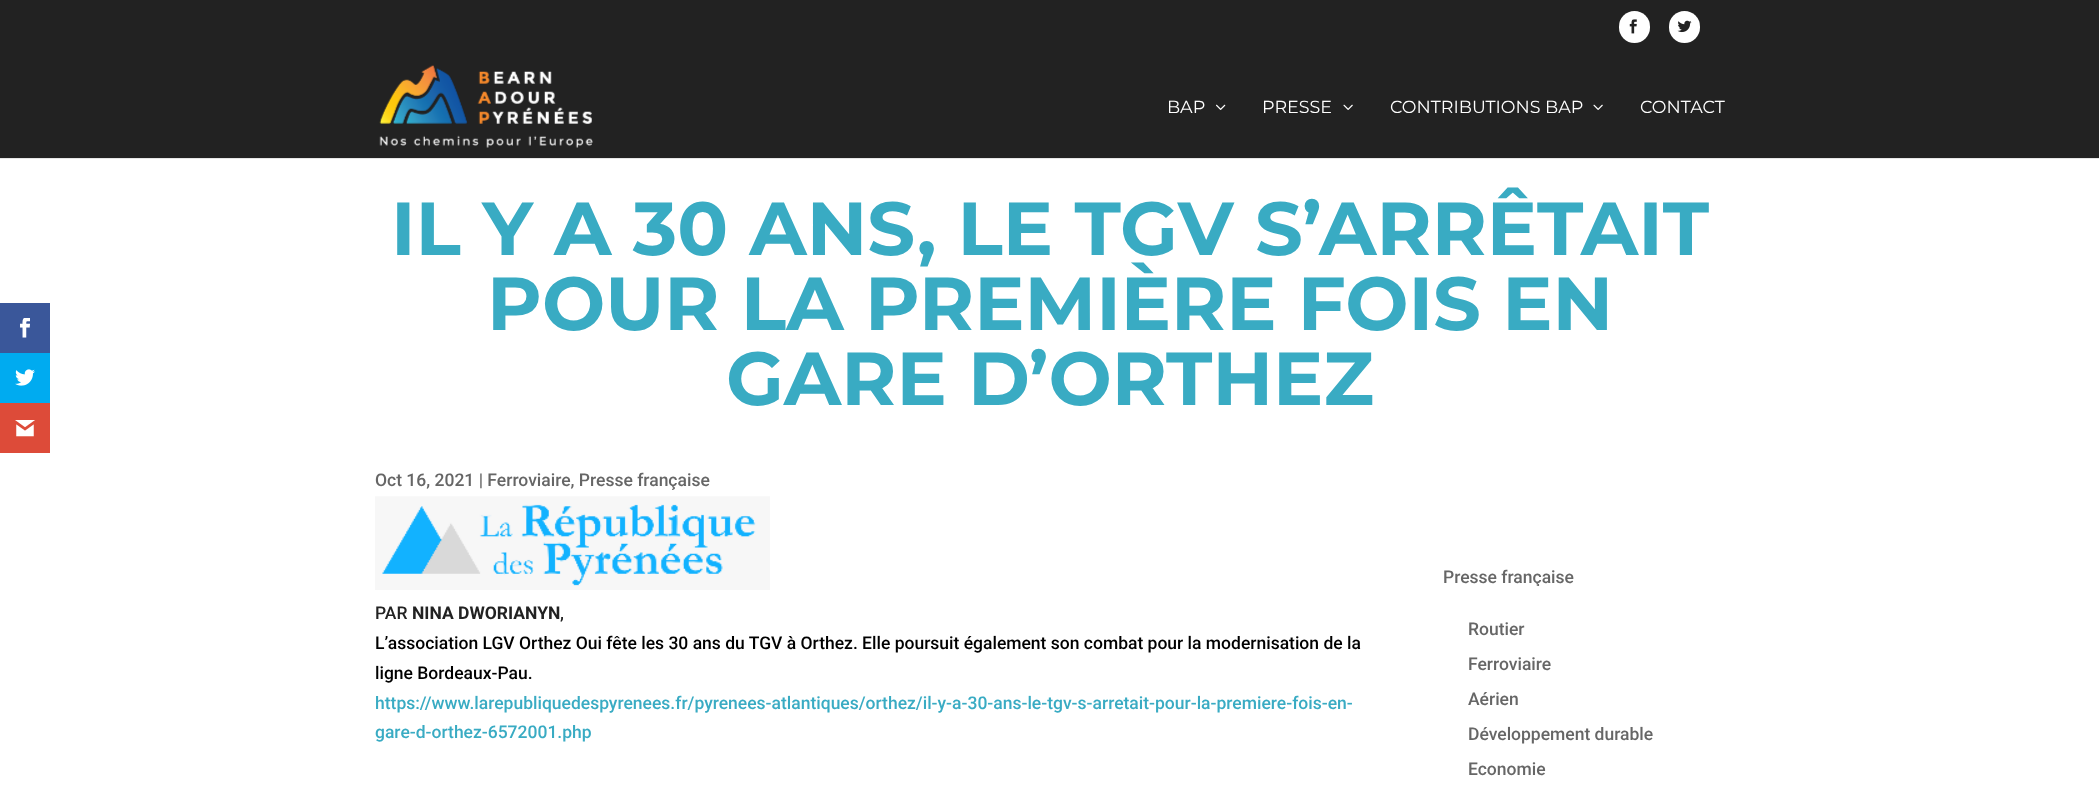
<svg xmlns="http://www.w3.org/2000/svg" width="2099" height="793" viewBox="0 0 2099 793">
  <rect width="100%" height="100%" fill="#fff"/>
  <path d="M0 303h50v50H0z" fill="#3a579a"/>
  <image x="20" y="318" width="10" height="20" href="img/1.png"/>
  <path d="M0 353h50v50H0z" fill="#00abf0"/>
  <image x="15" y="369" width="20" height="17" href="img/2.png"/>
  <path d="M0 403h50v50H0z" fill="#dd4b39"/>
  <image x="15" y="420" width="20" height="17" href="img/3.png"/>
  <path d="M0 0h2099v158H0z" fill="#222"/>
  <rect x="1619" y="11" width="31" height="32" rx="15.5" fill="#fff"/>
  <image x="1629" y="19" width="8" height="15" href="img/4.png"/>
  <rect x="1669" y="11" width="31" height="32" rx="15.5" fill="#fff"/>
  <image x="1677" y="20" width="15" height="13" href="img/5.png"/>
  <path d="M0 158h2099v1H0z" fill="#e6e6e6"/>
  <image x="379" y="65" width="214" height="83" href="img/6.png"/>
  <image x="1216" y="104" width="10" height="6" href="img/7.png"/>
  <image x="1343" y="104" width="10" height="6" href="img/8.png"/>
  <image x="1593" y="104" width="10" height="6" href="img/8.png"/>
  <image x="375" y="496" width="395" height="94" href="img/9.png"/>
  <g font-family="Montserrat" font-size="17.5" fill="#fff">
    <text x="1167" y="113">BAP</text>
    <text x="1262" y="113">PRESSE</text>
    <text x="1390" y="113">CONTRIBUTIONS BAP</text>
    <text x="1640" y="113">CONTACT</text>
  </g>
  <g font-family="Montserrat" font-size="75" font-weight="bold" fill="#39abc3">
    <text x="391" y="255">IL Y A 30 ANS, LE TGV S’ARRÊTAIT</text>
    <text x="487" y="330">POUR LA PREMIÈRE FOIS EN</text>
    <text x="726" y="405">GARE D’ORTHEZ</text>
  </g>
  <text x="375" y="486" font-family="Roboto" font-size="17.5" font-weight="500" fill="#666">Oct 16, 2021 | Ferroviaire, Presse française</text>
  <text x="375" y="619" font-family="Roboto" font-size="17.5" font-weight="500" fill="#222">PAR</text>
  <text x="412" y="619" font-family="Roboto" font-size="17.5" font-weight="bold" fill="#222">NINA DWORIANYN</text>
  <text x="560" y="619" font-family="Roboto" font-size="17.5" font-weight="500" fill="#222">,</text>
  <g font-family="Roboto" font-size="17.5" font-weight="500" fill="#000">
    <text x="375" y="649">L’association LGV Orthez Oui fête les 30 ans du TGV à Orthez. Elle poursuit également son combat pour la modernisation de la</text>
    <text x="375" y="679">ligne Bordeaux-Pau.</text>
  </g>
  <g font-family="Roboto" font-size="17.5" font-weight="500" fill="#39abc3">
    <text x="375" y="709">https://www.larepubliquedespyrenees.fr/pyrenees-atlantiques/orthez/il-y-a-30-ans-le-tgv-s-arretait-pour-la-premiere-fois-en-</text>
    <text x="375" y="738">gare-d-orthez-6572001.php</text>
  </g>
  <text x="1443" y="583" font-family="Roboto" font-size="17.5" font-weight="500" fill="#666">Presse française</text>
  <path d="M1536 586h3v1H1536z" fill="#fff"/>
  <g font-family="Roboto" font-size="17.5" font-weight="500" fill="#666">
    <text x="1468" y="635">Routier</text>
    <text x="1468" y="670">Ferroviaire</text>
    <text x="1468" y="705">Aérien</text>
    <text x="1468" y="740">Développement durable</text>
    <text x="1468" y="775">Economie</text>
  </g>
</svg>
